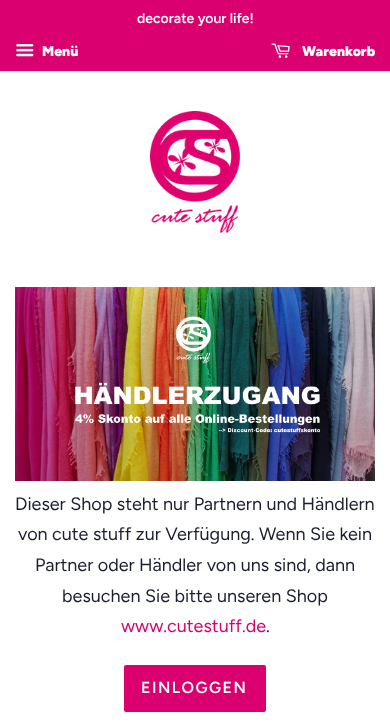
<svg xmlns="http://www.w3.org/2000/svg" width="390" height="724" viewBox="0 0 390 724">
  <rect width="100%" height="100%" fill="#fff"/>
  <path d="M0 0h390v71H0z" fill="#da0070"/>
  <image x="16" y="44" width="18" height="13" href="img/1.png"/>
  <image x="271" y="43" width="19" height="15" href="img/2.png"/>
  <image x="150" y="111" width="90" height="122" href="img/3.png"/>
  <image x="15" y="287" width="360" height="194" href="img/4.png"/>
  <rect x="124" y="665" width="142" height="47" rx="2" fill="#da0070"/>
  <text x="137" y="23" font-family="Figtree" font-size="14" font-weight="600" fill="#fff">decorate your life!</text>
  <g font-family="Figtree" font-size="14" font-weight="900" fill="#fff">
    <text x="42" y="56">Menü</text>
    <text x="302" y="56">Warenkorb</text>
  </g>
  <g font-family="Figtree" font-size="18" fill="#1b1e2f">
    <text x="15" y="510">Dieser Shop steht nur Partnern und Händlern</text>
    <text x="18" y="540">von cute stuff zur Verfügung. Wenn Sie kein</text>
    <text x="35" y="571">Partner oder Händler von uns sind, dann</text>
    <text x="62" y="602">besuchen Sie bitte unseren Shop</text>
  </g>
  <text x="121" y="632" font-family="Figtree" font-size="18" fill="#da0070">www.cutestuff.de</text>
  <text x="266" y="632" font-family="Figtree" font-size="18" fill="#1b1e2f">.</text>
  <text x="141" y="693" font-family="Figtree" font-size="16" font-weight="600" letter-spacing="1.5" fill="#fff">EINLOGGEN</text>
</svg>
